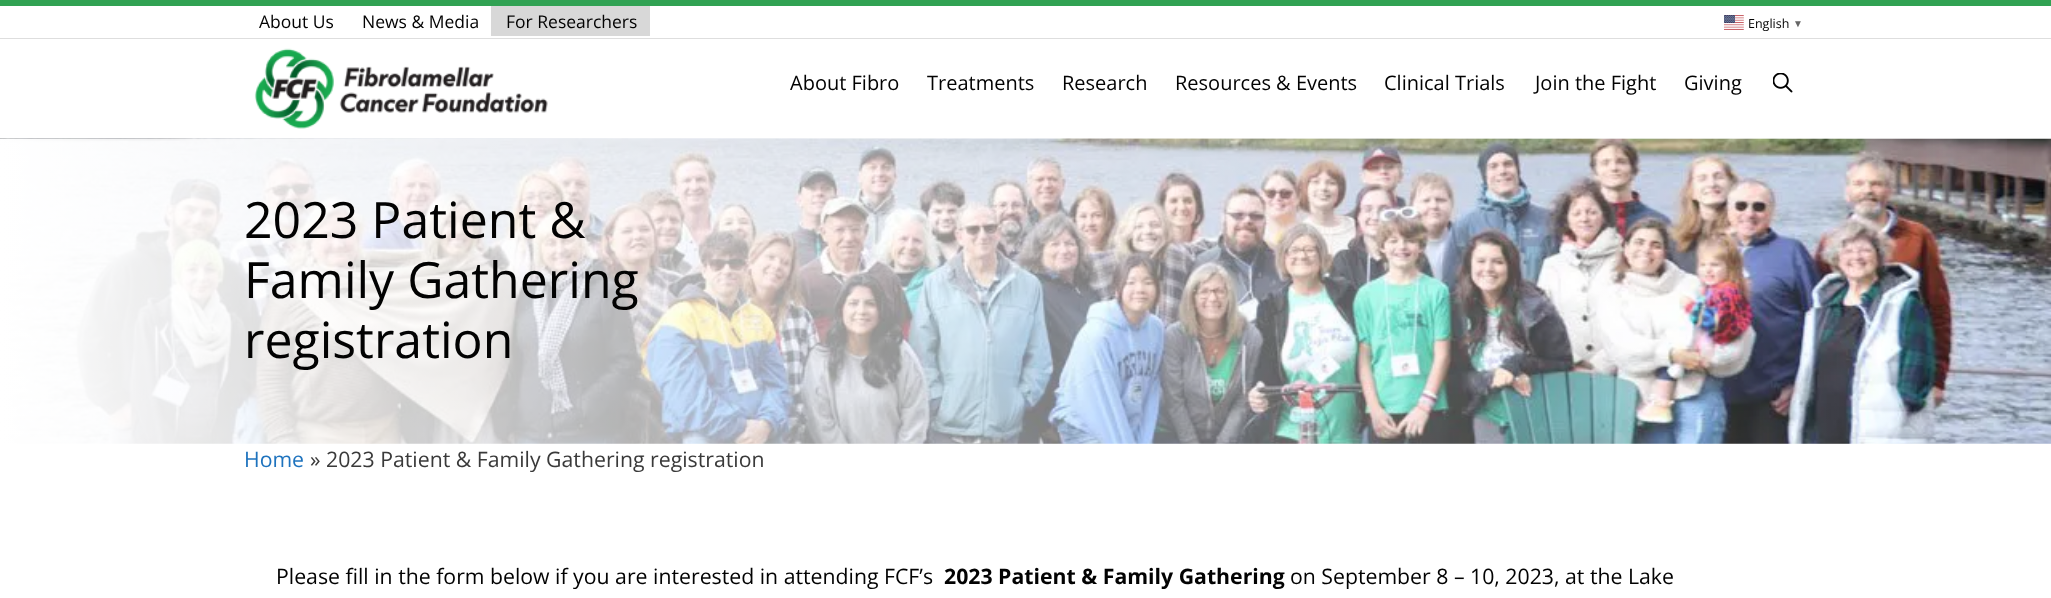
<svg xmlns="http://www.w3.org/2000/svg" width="2051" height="598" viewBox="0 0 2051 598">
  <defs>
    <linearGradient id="g1" gradientUnits="userSpaceOnUse" x1="0" y1="291" x2="2051" y2="291"><stop offset="0" stop-color="#fff"/><stop offset="1" stop-color="#fff" stop-opacity="0"/></linearGradient>
  </defs>
  <rect width="100%" height="100%" fill="#fff"/>
  <path d="M0 0h2051v6H0z" fill="#31a253"/>
  <path d="M0 38h2051v1H0z" fill="#dedede"/>
  <path d="M491 6h159v30H491z" fill="#d8d8d8"/>
  <image x="1724" y="15" width="20" height="15" href="img/1.png"/>
  <image x="254" y="48" width="294" height="81" href="img/2.png"/>
  <image x="1773" y="73" width="20" height="20" href="img/3.png"/>
  <image x="0" y="138" width="2051" height="306" href="img/4.png"/>
  <path d="M0 139h2007v305H0z" fill="url(#g1)"/>
  <g font-family="Open Sans" font-size="17.5" fill="#020202">
    <text x="259" y="28">About Us</text>
    <text x="362" y="28">News &amp; Media</text>
    <text x="506" y="28">For Researchers</text>
  </g>
  <text x="1748" y="28" font-family="Open Sans" font-size="12.5" fill="#020202">English</text>
  <text x="1793" y="27" font-family="Liberation Sans" font-size="10" font-weight="bold" fill="#666">▼</text>
  <g font-family="Open Sans" font-size="20" fill="#020202">
    <text x="790" y="90">About Fibro</text>
    <text x="927" y="90">Treatments</text>
    <text x="1062" y="90">Research</text>
    <text x="1175" y="90">Resources &amp; Events</text>
    <text x="1384" y="90">Clinical Trials</text>
    <text x="1535" y="90">Join the Fight</text>
    <text x="1684" y="90">Giving</text>
  </g>
  <g font-family="Open Sans" font-size="50" fill="#020202">
    <text x="244" y="238">2023 Patient &amp;</text>
    <text x="244" y="298">Family Gathering</text>
    <text x="244" y="358">registration</text>
  </g>
  <text x="244" y="467" font-family="Open Sans" font-size="21.25" fill="#1e73be">Home</text>
  <text x="310" y="467" font-family="Open Sans" font-size="21.25" fill="#3a3a3a">» 2023 Patient &amp; Family Gathering registration</text>
  <text x="276" y="584" font-family="Open Sans" font-size="21.25" fill="#020202">Please fill in the form below if you are interested in attending FCF’s</text>
  <text x="944" y="584" font-family="Open Sans" font-size="21.25" font-weight="bold" fill="#020202">2023 Patient &amp; Family Gathering</text>
  <text x="1290" y="584" font-family="Open Sans" font-size="21.25" fill="#020202">on September 8 – 10, 2023, at the Lake</text>
</svg>
